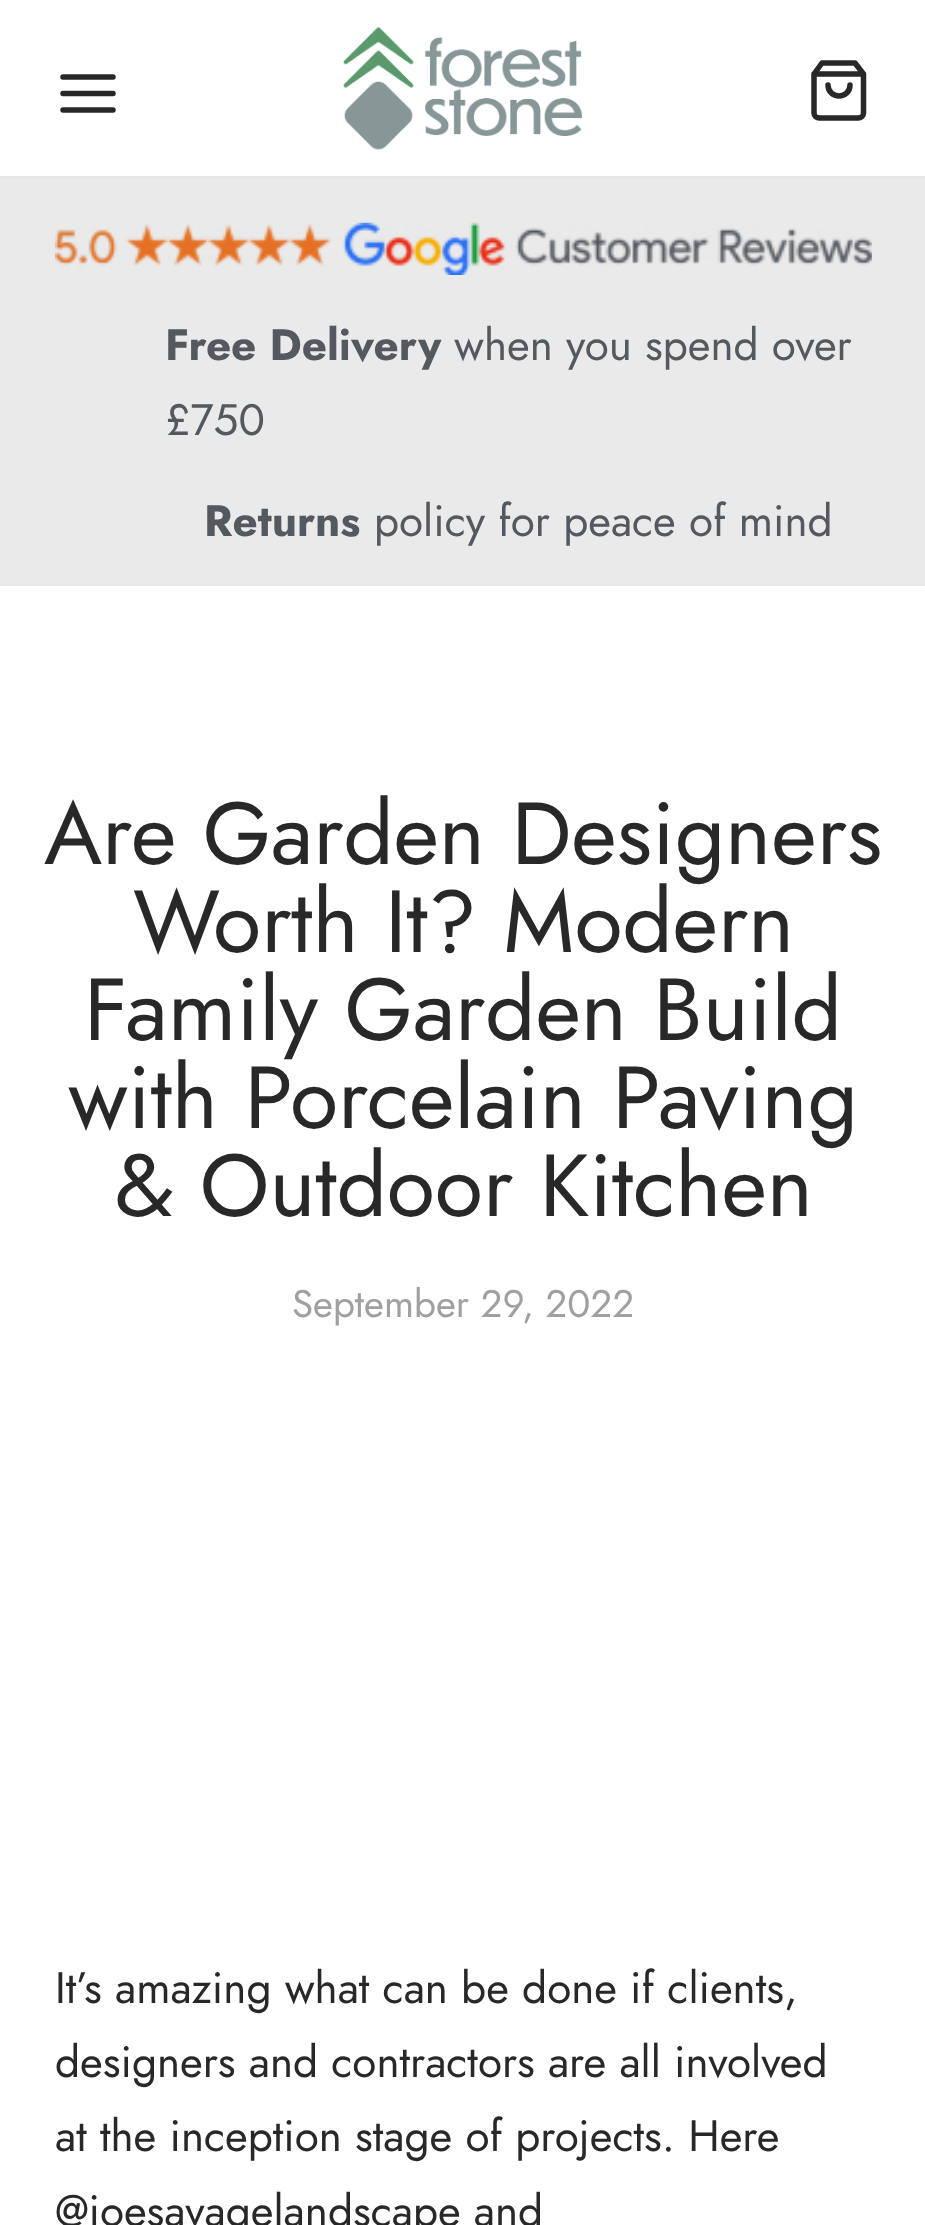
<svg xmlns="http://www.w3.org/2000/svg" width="925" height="2225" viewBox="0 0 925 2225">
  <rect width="100%" height="100%" fill="#fff"/>
  <path d="M63 93.5H113M63 77H113M63 110H113" fill="none" stroke="#282828" stroke-width="5.5" stroke-linecap="round" stroke-linejoin="round"/>
  <image x="343" y="27" width="240" height="123" href="img/1.png"/>
  <path d="M822 63L814 74V113C814 116 816.5 118 819.5 118H858C861 118 863.5 116 863.5 113V74L855 63ZM814 74H863.5M850 85C850 99.5 828 99.5 828 85" fill="none" stroke="#282828" stroke-width="5.5" stroke-linecap="round" stroke-linejoin="round"/>
  <path d="M0 176h925v3H0z" fill="#e6e6e6"/>
  <path d="M0 179h925v407H0z" fill="#eaeaea"/>
  <image x="55" y="222" width="817" height="53" href="img/2.png"/>
  <text x="165" y="360" font-family="Jost" font-size="44" font-weight="bold" fill="#54595f">Free Delivery</text>
  <g font-family="Jost" font-size="44" fill="#54595f">
    <text x="454" y="360">when you spend over</text>
    <text x="165" y="435">£750</text>
  </g>
  <text x="204" y="536" font-family="Jost" font-size="44" font-weight="bold" fill="#54595f">Returns</text>
  <text x="374" y="536" font-family="Jost" font-size="44" fill="#54595f">policy for peace of mind</text>
  <g font-family="Jost" font-size="88" fill="#282828">
    <text x="44" y="864">Are Garden Designers</text>
    <text x="133" y="952">Worth It? Modern</text>
    <text x="84" y="1040">Family Garden Build</text>
    <text x="68" y="1128">with Porcelain Paving</text>
    <text x="114" y="1216">&amp; Outdoor Kitchen</text>
  </g>
  <text x="292" y="1317" font-family="Jost" font-size="38.5" fill="#a0a0a0">September 29, 2022</text>
  <g font-family="Jost" font-size="44" fill="#282828">
    <text x="55" y="2003">It’s amazing what can be done if clients,</text>
    <text x="55" y="2077">designers and contractors are all involved</text>
    <text x="55" y="2151">at the inception stage of projects. Here</text>
    <text x="55" y="2226">@joesavagelandscape and</text>
  </g>
</svg>
